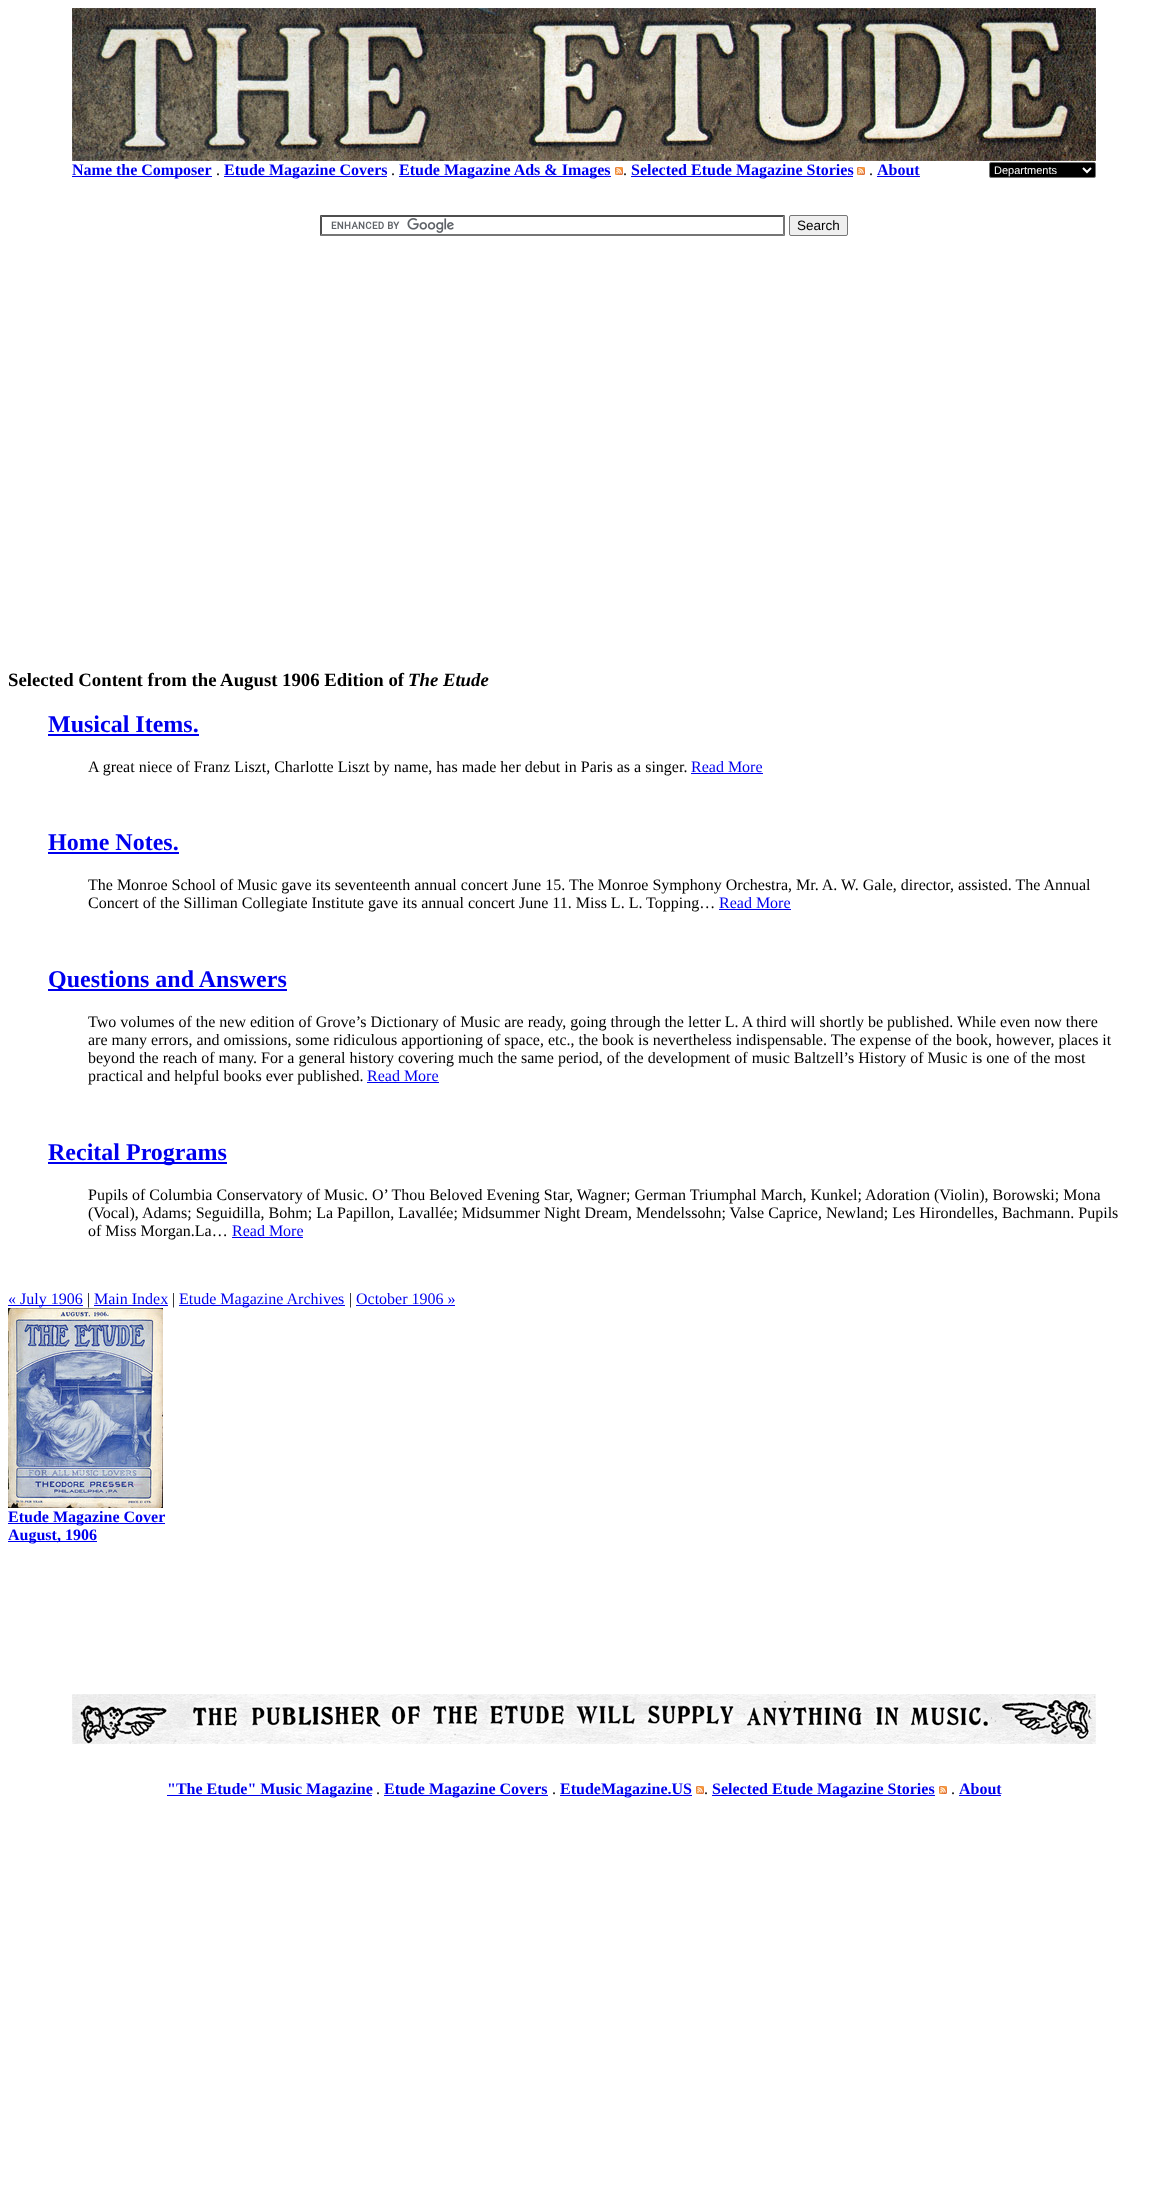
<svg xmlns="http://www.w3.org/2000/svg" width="1168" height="2209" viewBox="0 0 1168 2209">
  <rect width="100%" height="100%" fill="#fff"/>
  <image x="72" y="8" width="1024" height="153" href="img/1.png"/>
  <path d="M72 176h140v1H72z" fill="#00e"/>
  <path d="M224 176h163v1H224z" fill="#00e"/>
  <path d="M399 176h212v1H399z" fill="#00e"/>
  <image x="615" y="167" width="8" height="8" href="img/2.png"/>
  <path d="M631 176h222v1H631z" fill="#00e"/>
  <image x="857" y="167" width="8" height="8" href="img/2.png"/>
  <path d="M877 176h43v1H877z" fill="#00e"/>
  <rect x="989.5" y="162.5" width="106" height="15" rx="1.5" fill="#000" stroke="#767676"/>
  <path d="M1083 168L1087 172L1091 168" fill="none" stroke="#fff" stroke-width="2"/>
  <image x="331" y="218" width="123" height="15" href="img/3.png"/>
  <path d="M320 215H785L783 217H322Z" fill="#4f4f4f"/>
  <path d="M785 215V236L783 234V217Z" fill="#767676"/>
  <path d="M785 236H320L322 234H783Z" fill="#767676"/>
  <path d="M320 236V215L322 217V234Z" fill="#4f4f4f"/>
  <rect x="789.5" y="215.5" width="58" height="20" rx="1.5" fill="#efefef" stroke="#767676"/>
  <path d="M48 734h151v2H48z" fill="#00e"/>
  <path d="M691 773h72v1H691z" fill="#00e"/>
  <path d="M48 852h131v2H48z" fill="#00e"/>
  <path d="M719 909h72v1H719z" fill="#00e"/>
  <path d="M48 989h239v2H48z" fill="#00e"/>
  <path d="M367 1082h72v1H367z" fill="#00e"/>
  <path d="M48 1162h179v2H48z" fill="#00e"/>
  <path d="M232 1237h71v1H232z" fill="#00e"/>
  <path d="M8 1305h75v1H8z" fill="#00e"/>
  <path d="M94 1305h74v1H94z" fill="#00e"/>
  <path d="M179 1305h166v1H179z" fill="#00e"/>
  <path d="M356 1305h99v1H356z" fill="#00e"/>
  <image x="8" y="1308" width="155" height="200" href="img/4.png"/>
  <path d="M8 1523h157v1H8z" fill="#00e"/>
  <path d="M8 1541h89v1H8z" fill="#00e"/>
  <image x="72" y="1694" width="1024" height="50" href="img/5.png"/>
  <path d="M167 1795h205v1H167z" fill="#00e"/>
  <path d="M384 1795h164v1H384z" fill="#00e"/>
  <path d="M560 1795h132v1H560z" fill="#00e"/>
  <image x="696" y="1786" width="8" height="8" href="img/2.png"/>
  <path d="M712 1795h223v1H712z" fill="#00e"/>
  <image x="939" y="1786" width="8" height="8" href="img/2.png"/>
  <path d="M959 1795h42v1H959z" fill="#00e"/>
  <text x="72" y="175" font-family="Liberation Serif" font-size="16" font-weight="bold" fill="#00e">Name the Composer</text>
  <text x="216" y="175" font-family="Liberation Serif" font-size="16" fill="#000">.</text>
  <text x="224" y="175" font-family="Liberation Serif" font-size="16" font-weight="bold" fill="#00e">Etude Magazine Covers</text>
  <text x="391" y="175" font-family="Liberation Serif" font-size="16" fill="#000">.</text>
  <text x="399" y="175" font-family="Liberation Serif" font-size="16" font-weight="bold" fill="#00e">Etude Magazine Ads &amp; Images</text>
  <text x="623" y="175" font-family="Liberation Serif" font-size="16" fill="#000">.</text>
  <text x="631" y="175" font-family="Liberation Serif" font-size="16" font-weight="bold" fill="#00e">Selected Etude Magazine Stories</text>
  <text x="869" y="175" font-family="Liberation Serif" font-size="16" fill="#000">.</text>
  <text x="877" y="175" font-family="Liberation Serif" font-size="16" font-weight="bold" fill="#00e">About</text>
  <text x="994" y="174" font-family="Liberation Sans" font-size="11" fill="#fff">Departments</text>
  <text x="797" y="230" font-family="Liberation Sans" font-size="13.5" fill="#000">Search</text>
  <text x="8" y="686" font-family="Liberation Serif" font-size="18.75" font-weight="bold" fill="#000">Selected Content from the August 1906 Edition of</text>
  <text x="408" y="686" font-family="Liberation Serif" font-size="18.75" font-weight="bold" font-style="italic" fill="#000">The Etude</text>
  <text x="48" y="732" font-family="Liberation Serif" font-size="24" font-weight="bold" fill="#00e">Musical Items.</text>
  <text x="88" y="772" font-family="Liberation Serif" font-size="16" fill="#000">A great niece of Franz Liszt, Charlotte Liszt by name, has made her debut in Paris as a singer.</text>
  <text x="691" y="772" font-family="Liberation Serif" font-size="16" fill="#00e">Read More</text>
  <text x="48" y="850" font-family="Liberation Serif" font-size="24" font-weight="bold" fill="#00e">Home Notes.</text>
  <g font-family="Liberation Serif" font-size="16" fill="#000">
    <text x="88" y="890">The Monroe School of Music gave its seventeenth annual concert June 15. The Monroe Symphony Orchestra, Mr. A. W. Gale, director, assisted. The Annual</text>
    <text x="88" y="908">Concert of the Silliman Collegiate Institute gave its annual concert June 11. Miss L. L. Topping…</text>
  </g>
  <text x="719" y="908" font-family="Liberation Serif" font-size="16" fill="#00e">Read More</text>
  <text x="48" y="987" font-family="Liberation Serif" font-size="24" font-weight="bold" fill="#00e">Questions and Answers</text>
  <g font-family="Liberation Serif" font-size="16" fill="#000">
    <text x="88" y="1027">Two volumes of the new edition of Grove’s Dictionary of Music are ready, going through the letter L. A third will shortly be published. While even now there</text>
    <text x="88" y="1045">are many errors, and omissions, some ridiculous apportioning of space, etc., the book is nevertheless indispensable. The expense of the book, however, places it</text>
    <text x="88" y="1063">beyond the reach of many. For a general history covering much the same period, of the development of music Baltzell’s History of Music is one of the most</text>
    <text x="88" y="1081">practical and helpful books ever published.</text>
  </g>
  <text x="367" y="1081" font-family="Liberation Serif" font-size="16" fill="#00e">Read More</text>
  <text x="48" y="1160" font-family="Liberation Serif" font-size="24" font-weight="bold" fill="#00e">Recital Programs</text>
  <g font-family="Liberation Serif" font-size="16" fill="#000">
    <text x="88" y="1200">Pupils of Columbia Conservatory of Music. O’ Thou Beloved Evening Star, Wagner; German Triumphal March, Kunkel; Adoration (Violin), Borowski; Mona</text>
    <text x="88" y="1218">(Vocal), Adams; Seguidilla, Bohm; La Papillon, Lavallée; Midsummer Night Dream, Mendelssohn; Valse Caprice, Newland; Les Hirondelles, Bachmann. Pupils</text>
    <text x="88" y="1236">of Miss Morgan.La…</text>
  </g>
  <g font-family="Liberation Serif" font-size="16" fill="#00e">
    <text x="232" y="1236">Read More</text>
    <text x="8" y="1304">« July 1906</text>
  </g>
  <text x="87" y="1304" font-family="Liberation Serif" font-size="16" fill="#000">|</text>
  <text x="94" y="1304" font-family="Liberation Serif" font-size="16" fill="#00e">Main Index</text>
  <text x="172" y="1304" font-family="Liberation Serif" font-size="16" fill="#000">|</text>
  <text x="179" y="1304" font-family="Liberation Serif" font-size="16" fill="#00e">Etude Magazine Archives</text>
  <text x="349" y="1304" font-family="Liberation Serif" font-size="16" fill="#000">|</text>
  <text x="356" y="1304" font-family="Liberation Serif" font-size="16" fill="#00e">October 1906 »</text>
  <g font-family="Liberation Serif" font-size="16" font-weight="bold" fill="#00e">
    <text x="8" y="1522">Etude Magazine Cover</text>
    <text x="8" y="1540">August, 1906</text>
    <text x="167" y="1794">"The Etude" Music Magazine</text>
  </g>
  <text x="376" y="1794" font-family="Liberation Serif" font-size="16" fill="#000">.</text>
  <text x="384" y="1794" font-family="Liberation Serif" font-size="16" font-weight="bold" fill="#00e">Etude Magazine Covers</text>
  <text x="552" y="1794" font-family="Liberation Serif" font-size="16" fill="#000">.</text>
  <text x="560" y="1794" font-family="Liberation Serif" font-size="16" font-weight="bold" fill="#00e">EtudeMagazine.US</text>
  <text x="704" y="1794" font-family="Liberation Serif" font-size="16" fill="#000">.</text>
  <text x="712" y="1794" font-family="Liberation Serif" font-size="16" font-weight="bold" fill="#00e">Selected Etude Magazine Stories</text>
  <text x="951" y="1794" font-family="Liberation Serif" font-size="16" fill="#000">.</text>
  <text x="959" y="1794" font-family="Liberation Serif" font-size="16" font-weight="bold" fill="#00e">About</text>
</svg>
